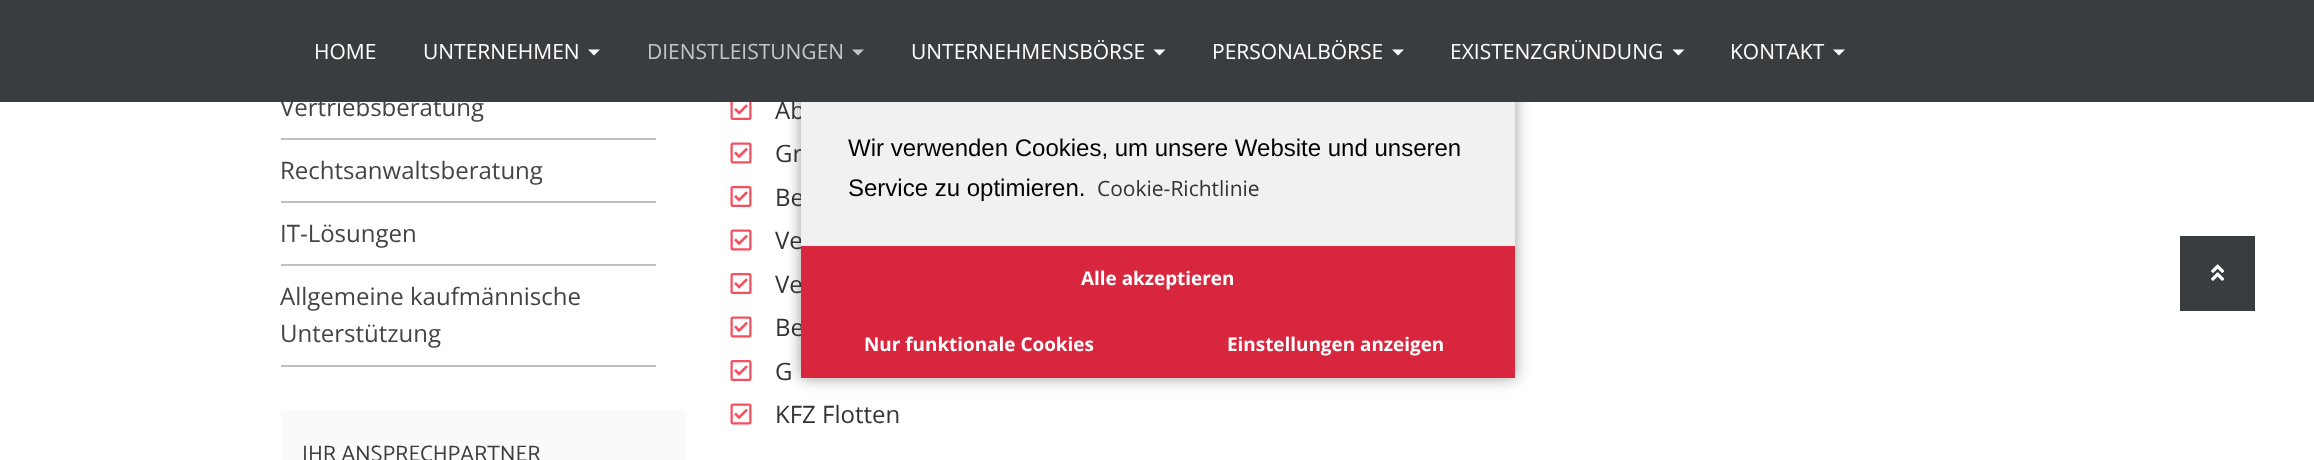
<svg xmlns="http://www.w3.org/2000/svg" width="2314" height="460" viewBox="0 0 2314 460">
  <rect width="100%" height="100%" fill="#fff"/>
  <path d="M281 138h375v2H281z" fill="#c0c0c0"/>
  <path d="M281 201h375v2H281z" fill="#c0c0c0"/>
  <path d="M281 264h375v2H281z" fill="#c0c0c0"/>
  <path d="M281 365h375v2H281z" fill="#c0c0c0"/>
  <path d="M281 411h405v49H281z" fill="#fafafa"/>
  <image x="730" y="102" width="22" height="18" href="img/1.png"/>
  <image x="730" y="142" width="22" height="22" href="img/2.png"/>
  <image x="730" y="186" width="22" height="21" href="img/3.png"/>
  <image x="730" y="229" width="22" height="22" href="img/2.png"/>
  <image x="730" y="273" width="22" height="21" href="img/3.png"/>
  <image x="730" y="316" width="22" height="22" href="img/2.png"/>
  <image x="730" y="360" width="22" height="21" href="img/3.png"/>
  <image x="730" y="403" width="22" height="22" href="img/2.png"/>
  <path d="M801 84h714v294H801z" fill="#00000066" filter="blur(7.5px)"/>
  <path d="M2180 236h75v75H2180z" fill="#3a3d40"/>
  <image x="2211" y="264" width="14" height="17" href="img/4.png"/>
  <g font-family="Open Sans" font-size="24" fill="#444">
    <text x="280" y="116">Vertriebsberatung</text>
    <text x="280" y="179">Rechtsanwaltsberatung</text>
    <text x="280" y="242">IT-Lösungen</text>
    <text x="280" y="305">Allgemeine kaufmännische</text>
    <text x="280" y="342">Unterstützung</text>
  </g>
  <text x="302" y="461" font-family="Catamaran" font-size="22.5" font-weight="100" fill="#3a3d40">IHR ANSPRECHPARTNER</text>
  <text x="775" y="119" font-family="Open Sans" font-size="24" fill="#333">Ab</text>
  <path d="M0 0h2314v102H0z" fill="#3a3d40"/>
  <path d="M1833 49.5H1845L1839 55.5Z" fill="#fff"/>
  <text x="1730" y="59" font-family="Open Sans" font-size="21" fill="#fff">KONTAKT</text>
  <path d="M1672.5 49.5H1684.5L1678.5 55.5Z" fill="#fff"/>
  <text x="1450" y="59" font-family="Open Sans" font-size="21" fill="#fff">EXISTENZGRÜNDUNG</text>
  <path d="M1392 49.5H1404L1398 55.5Z" fill="#fff"/>
  <text x="1212" y="59" font-family="Open Sans" font-size="21" fill="#fff">PERSONALBÖRSE</text>
  <path d="M1153.5 49.5H1165.5L1159.5 55.5Z" fill="#fff"/>
  <text x="911" y="59" font-family="Open Sans" font-size="21" fill="#fff">UNTERNEHMENSBÖRSE</text>
  <path d="M852 49.5H864L858 55.5Z" fill="#c4c5c6"/>
  <text x="647" y="59" font-family="Open Sans" font-size="21" fill="#c4c5c6">DIENSTLEISTUNGEN</text>
  <path d="M588 49.5H600L594 55.5Z" fill="#fff"/>
  <g font-family="Open Sans" font-size="21" fill="#fff">
    <text x="423" y="59">UNTERNEHMEN</text>
    <text x="314" y="59">HOME</text>
  </g>
  <g font-family="Open Sans" font-size="24" fill="#333">
    <text x="775" y="162">Gr</text>
    <text x="775" y="206">Be</text>
    <text x="775" y="249">Ve</text>
    <text x="775" y="293">Ve</text>
    <text x="775" y="336">Be</text>
    <text x="775" y="380">G</text>
    <text x="775" y="423">KFZ Flotten</text>
  </g>
  <path d="M801 102h714v144H801z" fill="#f1f1f1"/>
  <g font-family="Liberation Sans" font-size="24" fill="#000">
    <text x="848" y="156">Wir verwenden Cookies, um unsere Website und unseren</text>
    <text x="848" y="196">Service zu optimieren.</text>
  </g>
  <text x="1097" y="196" font-family="Open Sans" font-size="21" fill="#333">Cookie-Richtlinie</text>
  <path d="M801 246h714v66H801z" fill="#d7263d"/>
  <text x="1081" y="285" font-family="Open Sans" font-size="18.9" font-weight="bold" fill="#fff">Alle akzeptieren</text>
  <path d="M801 312h714v66H801z" fill="#d7263d"/>
  <g font-family="Open Sans" font-size="18.9" font-weight="bold" fill="#fff">
    <text x="864" y="351">Nur funktionale Cookies</text>
    <text x="1227" y="351">Einstellungen anzeigen</text>
  </g>
</svg>
